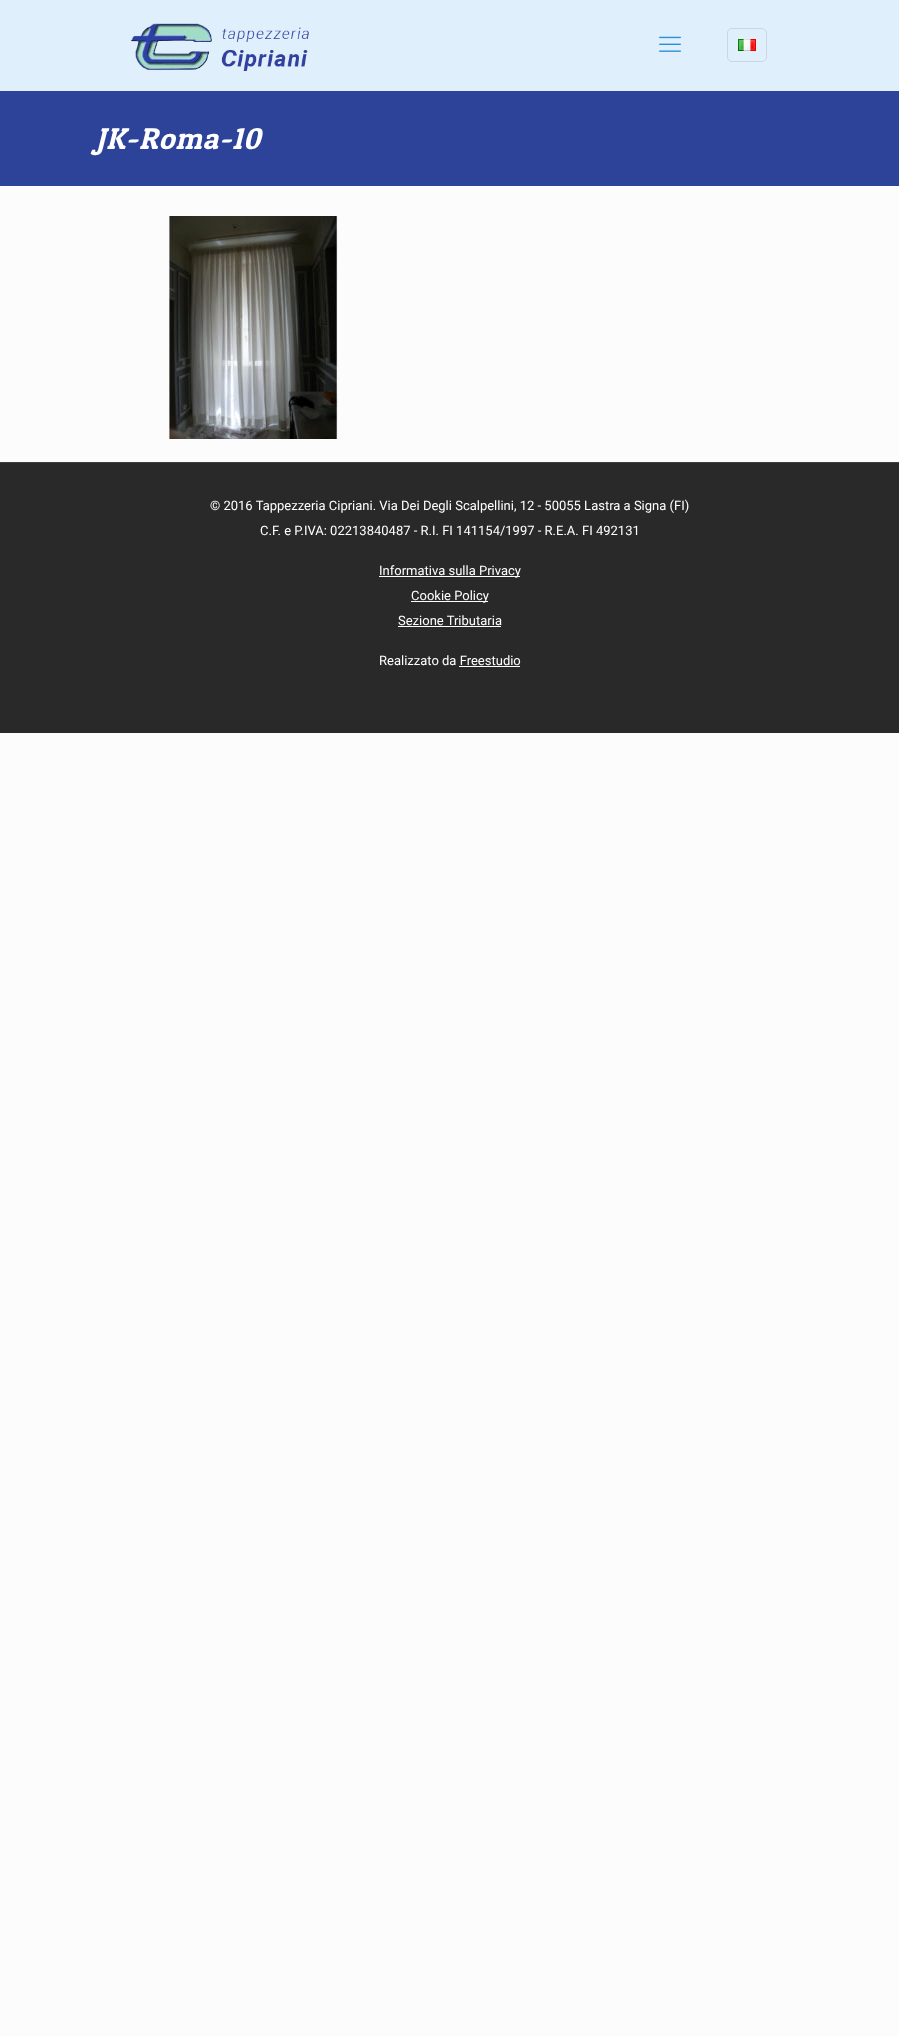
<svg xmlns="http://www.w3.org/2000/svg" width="899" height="2036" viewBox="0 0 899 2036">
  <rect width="100%" height="100%" fill="#fcfcfc"/>
  <path d="M0 0h899v91H0z" fill="#e0effc"/>
  <image x="130" y="23" width="179" height="48" href="img/1.png"/>
  <image x="659" y="36" width="22" height="16" href="img/2.png"/>
  <rect x="727.5" y="28.5" width="39" height="33" rx="4.5" fill="none" stroke="#cad7e3"/>
  <image x="738" y="39" width="18" height="12" href="img/3.png"/>
  <path d="M0 91h899v95H0z" fill="#2d4399"/>
  <image x="169" y="216" width="169" height="223" href="img/4.png"/>
  <path d="M0 463h899v270H0z" fill="#292929"/>
  <path d="M0 462h899v1H0z" fill="#3e3e3e"/>
  <path d="M379 576h141v1H379z" fill="#fff"/>
  <path d="M411 601h77v1H411z" fill="#fff"/>
  <path d="M398 626h103v1H398z" fill="#fff"/>
  <path d="M459 666h61v1H459z" fill="#fff"/>
  <text x="96" y="149" font-family="Patua One" font-size="30" font-style="italic" letter-spacing="1" fill="#fff">JK-Roma-10</text>
  <g font-family="Roboto" font-size="13" fill="#fff">
    <text x="210" y="510">© 2016 Tappezzeria Cipriani. Via Dei Degli Scalpellini, 12 - 50055 Lastra a Signa (FI)</text>
    <text x="260" y="535">C.F. e P.IVA: 02213840487 - R.I. FI 141154/1997 - R.E.A. FI 492131</text>
    <text x="379" y="575">Informativa sulla Privacy</text>
    <text x="411" y="600">Cookie Policy</text>
    <text x="398" y="625">Sezione Tributaria</text>
    <text x="379" y="665">Realizzato da Freestudio</text>
  </g>
</svg>
